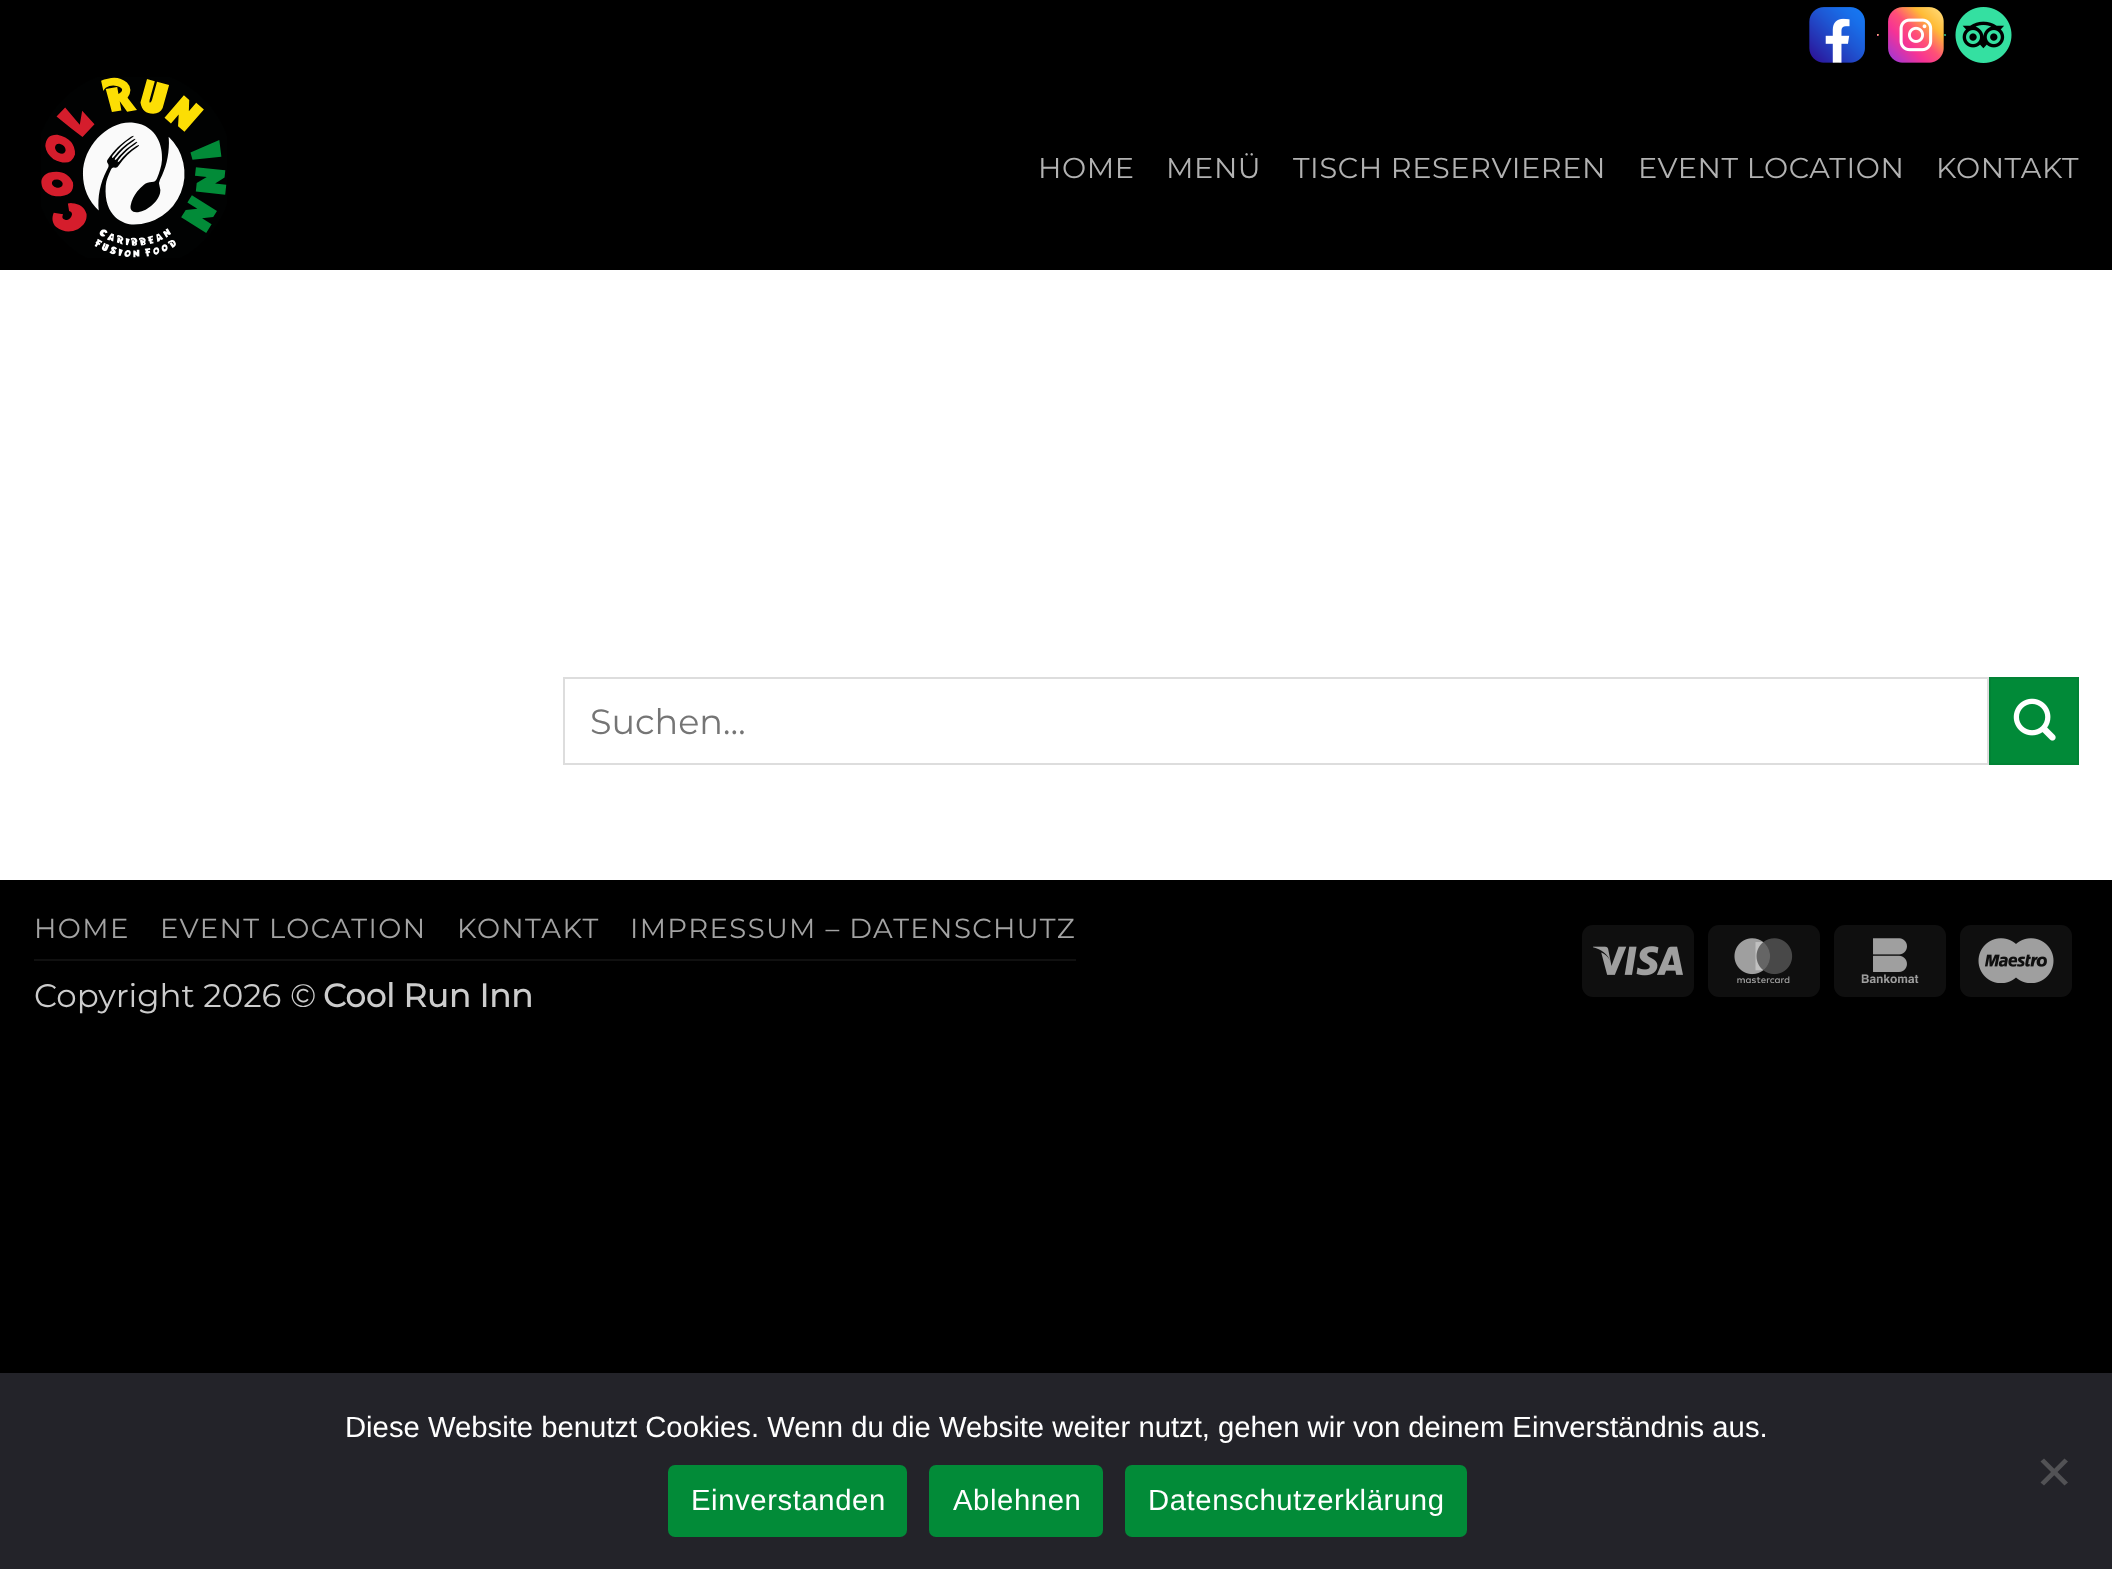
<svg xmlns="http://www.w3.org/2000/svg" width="2112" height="1569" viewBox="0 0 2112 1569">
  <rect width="100%" height="100%" fill="#000"/>
  <path d="M0 270h2112v610H0z" fill="#fff"/>
  <image x="1809" y="7" width="56" height="56" href="img/1.png"/>
  <image x="1877" y="34" width="2" height="2" href="img/2.png"/>
  <image x="1888" y="7" width="56" height="56" href="img/3.png"/>
  <image x="1944" y="34" width="2" height="2" href="img/4.png"/>
  <image x="1955" y="7" width="57" height="56" href="img/5.png"/>
  <image x="41" y="77" width="186" height="181" href="img/6.png"/>
  <path d="M564 678h1424v86H564z" fill="none" stroke="#ddd" stroke-width="2"/>
  <path d="M1990 678h88v86H1990z" fill="#018a38" stroke="#018335" stroke-width="2"/>
  <image x="2013" y="698" width="43" height="43" href="img/7.png"/>
  <path d="M34 959h1042v2H34z" fill="#101010"/>
  <rect x="1582" y="925" width="112" height="72" rx="11" fill="#0f0f0f"/>
  <image x="1593" y="946" width="90" height="30" href="img/8.png"/>
  <rect x="1708" y="925" width="112" height="72" rx="11" fill="#0f0f0f"/>
  <image x="1734" y="938" width="59" height="45" href="img/9.png"/>
  <rect x="1834" y="925" width="112" height="72" rx="11" fill="#0f0f0f"/>
  <image x="1861" y="938" width="58" height="45" href="img/10.png"/>
  <rect x="1960" y="925" width="112" height="72" rx="11" fill="#0f0f0f"/>
  <image x="1978" y="938" width="76" height="45" href="img/11.png"/>
  <path d="M0 1373h2112v196H0z" fill="#232329"/>
  <path d="M2064.5 1458.5L2068 1461.5L2044 1485.5L2040.5 1482.5Z" fill="#525255"/>
  <path d="M2040.5 1461.5L2044 1458.5L2068 1482.5L2064.5 1485.5Z" fill="#525255"/>
  <rect x="668" y="1465" width="239" height="72" rx="7" fill="#028b38"/>
  <rect x="929" y="1465" width="174" height="72" rx="7" fill="#028b38"/>
  <rect x="1125" y="1465" width="342" height="72" rx="7" fill="#028b38"/>
  <g font-family="Montserrat" font-size="28.75" font-weight="100" letter-spacing="0.6" fill="#b2b2b2">
    <text x="1038" y="178">HOME</text>
    <text x="1166" y="178">MENÜ</text>
    <text x="1293" y="178">TISCH RESERVIEREN</text>
    <text x="1638" y="178">EVENT LOCATION</text>
    <text x="1936" y="178">KONTAKT</text>
  </g>
  <text x="590" y="734" font-family="Montserrat" font-size="35" font-weight="100" fill="#757575">Suchen…</text>
  <g font-family="Montserrat" font-size="27.5" font-weight="100" letter-spacing="1.4" fill="#a3a3a3">
    <text x="34" y="938">HOME</text>
    <text x="160" y="938">EVENT LOCATION</text>
    <text x="457" y="938">KONTAKT</text>
    <text x="630" y="938">IMPRESSUM – DATENSCHUTZ</text>
  </g>
  <text x="34" y="1007" font-family="Montserrat" font-size="32.5" font-weight="100" fill="#ccc">Copyright 2026 ©</text>
  <text x="323" y="1007" font-family="Montserrat" font-size="32.5" font-weight="bold" fill="#ccc">Cool Run Inn</text>
  <text x="345" y="1437" font-family="Liberation Sans" font-size="29.25" fill="#fff">Diese Website benutzt Cookies. Wenn du die Website weiter nutzt, gehen wir von deinem Einverständnis aus.</text>
  <g font-family="Liberation Sans" font-size="29.25" letter-spacing="0.6" fill="#fff">
    <text x="691" y="1510">Einverstanden</text>
    <text x="953" y="1510">Ablehnen</text>
    <text x="1148" y="1510">Datenschutzerklärung</text>
  </g>
</svg>
